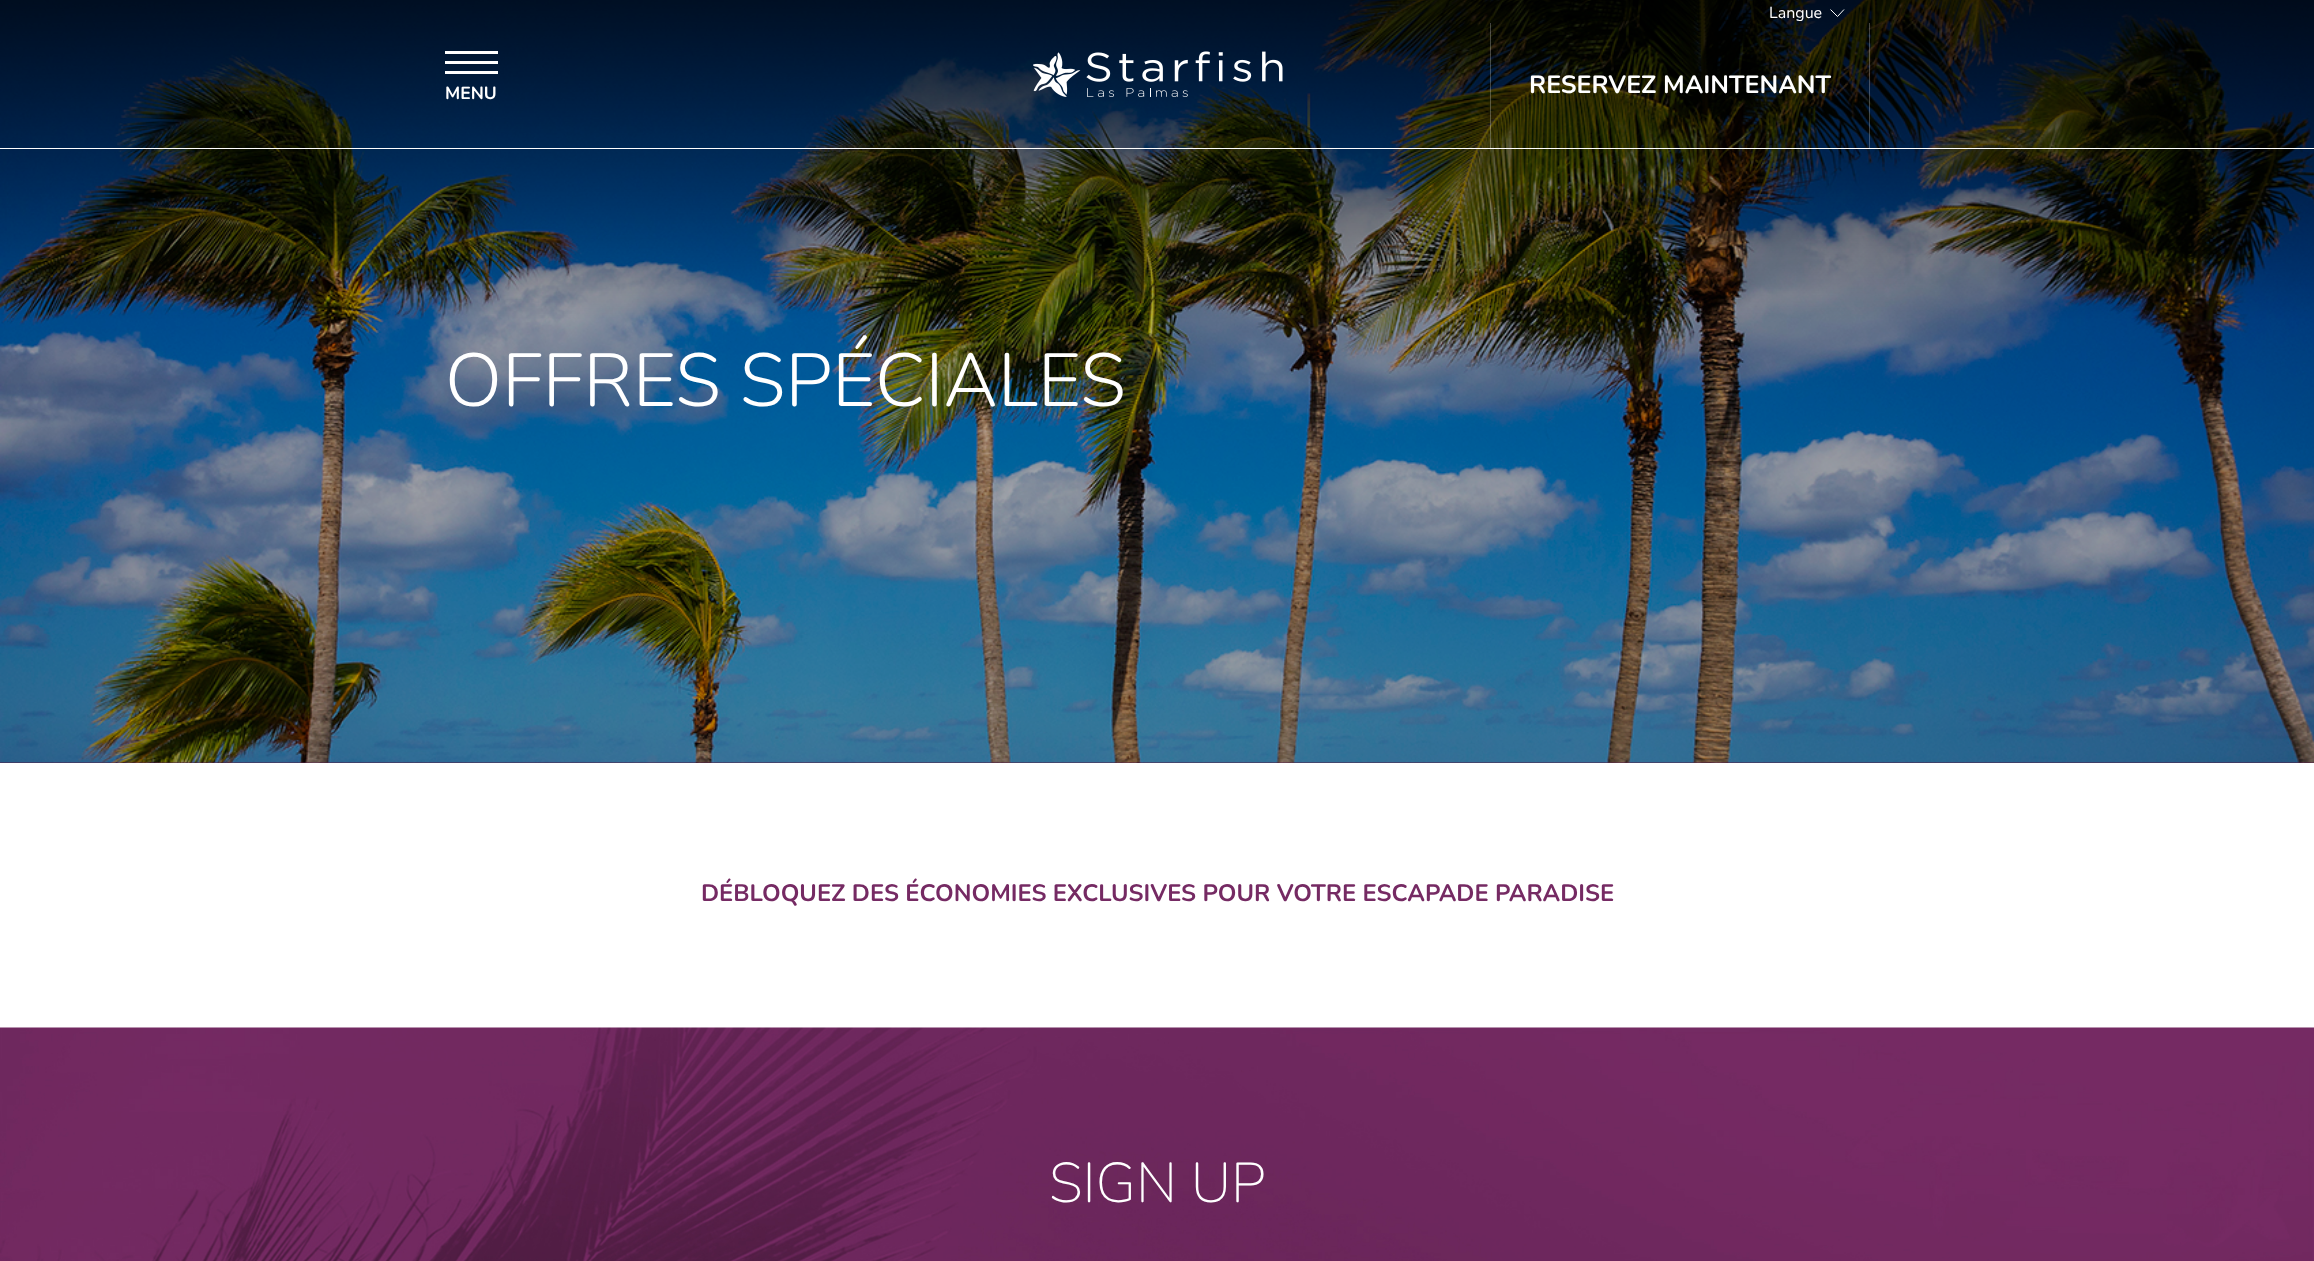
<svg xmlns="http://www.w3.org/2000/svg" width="2314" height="1261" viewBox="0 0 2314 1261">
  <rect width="100%" height="100%" fill="#fff"/>
  <path d="M0 762h2314v1H0z" fill="#521d45"/>
  <image x="0" y="0" width="2314" height="763" href="img/2.png"/>
  <path d="M0 148h2314v1H0z" fill="#fff"/>
  <path d="M445 51h53v3H445z" fill="#fff"/>
  <path d="M445 61h53v3H445z" fill="#fff"/>
  <path d="M445 71h53v3H445z" fill="#fff"/>
  <image x="1033" y="51" width="250" height="46" href="img/1.png"/>
  <path d="M1844 9.5L1837.5 16.5L1830.5 9.5" fill="none" stroke="#fff"/>
  <path d="M1869 23h1v125H1869z" fill="#ffffff40"/>
  <path d="M1490 23h1v125H1490z" fill="#ffffff40"/>
  <image x="0" y="1027" width="2314" height="234" href="img/3.png"/>
  <text x="445" y="99" font-family="Nunito" font-size="17.5" font-weight="bold" fill="#fff">MENU</text>
  <text x="1769" y="18" font-family="Nunito" font-size="16" fill="#fff">Langue</text>
  <text x="1529" y="93" font-family="Nunito" font-size="25" font-weight="bold" fill="#fff">RESERVEZ MAINTENANT</text>
  <text x="445" y="406" font-family="Nunito" font-size="75" font-weight="300" fill="#fff">OFFRES SPÉCIALES</text>
  <text x="701" y="901" font-family="Nunito" font-size="23.75" font-weight="bold" fill="#752a63">DÉBLOQUEZ DES ÉCONOMIES EXCLUSIVES POUR VOTRE ESCAPADE PARADISE</text>
  <text x="1049" y="1202" font-family="Nunito" font-size="56" font-weight="200" fill="#fff">SIGN UP</text>
</svg>
